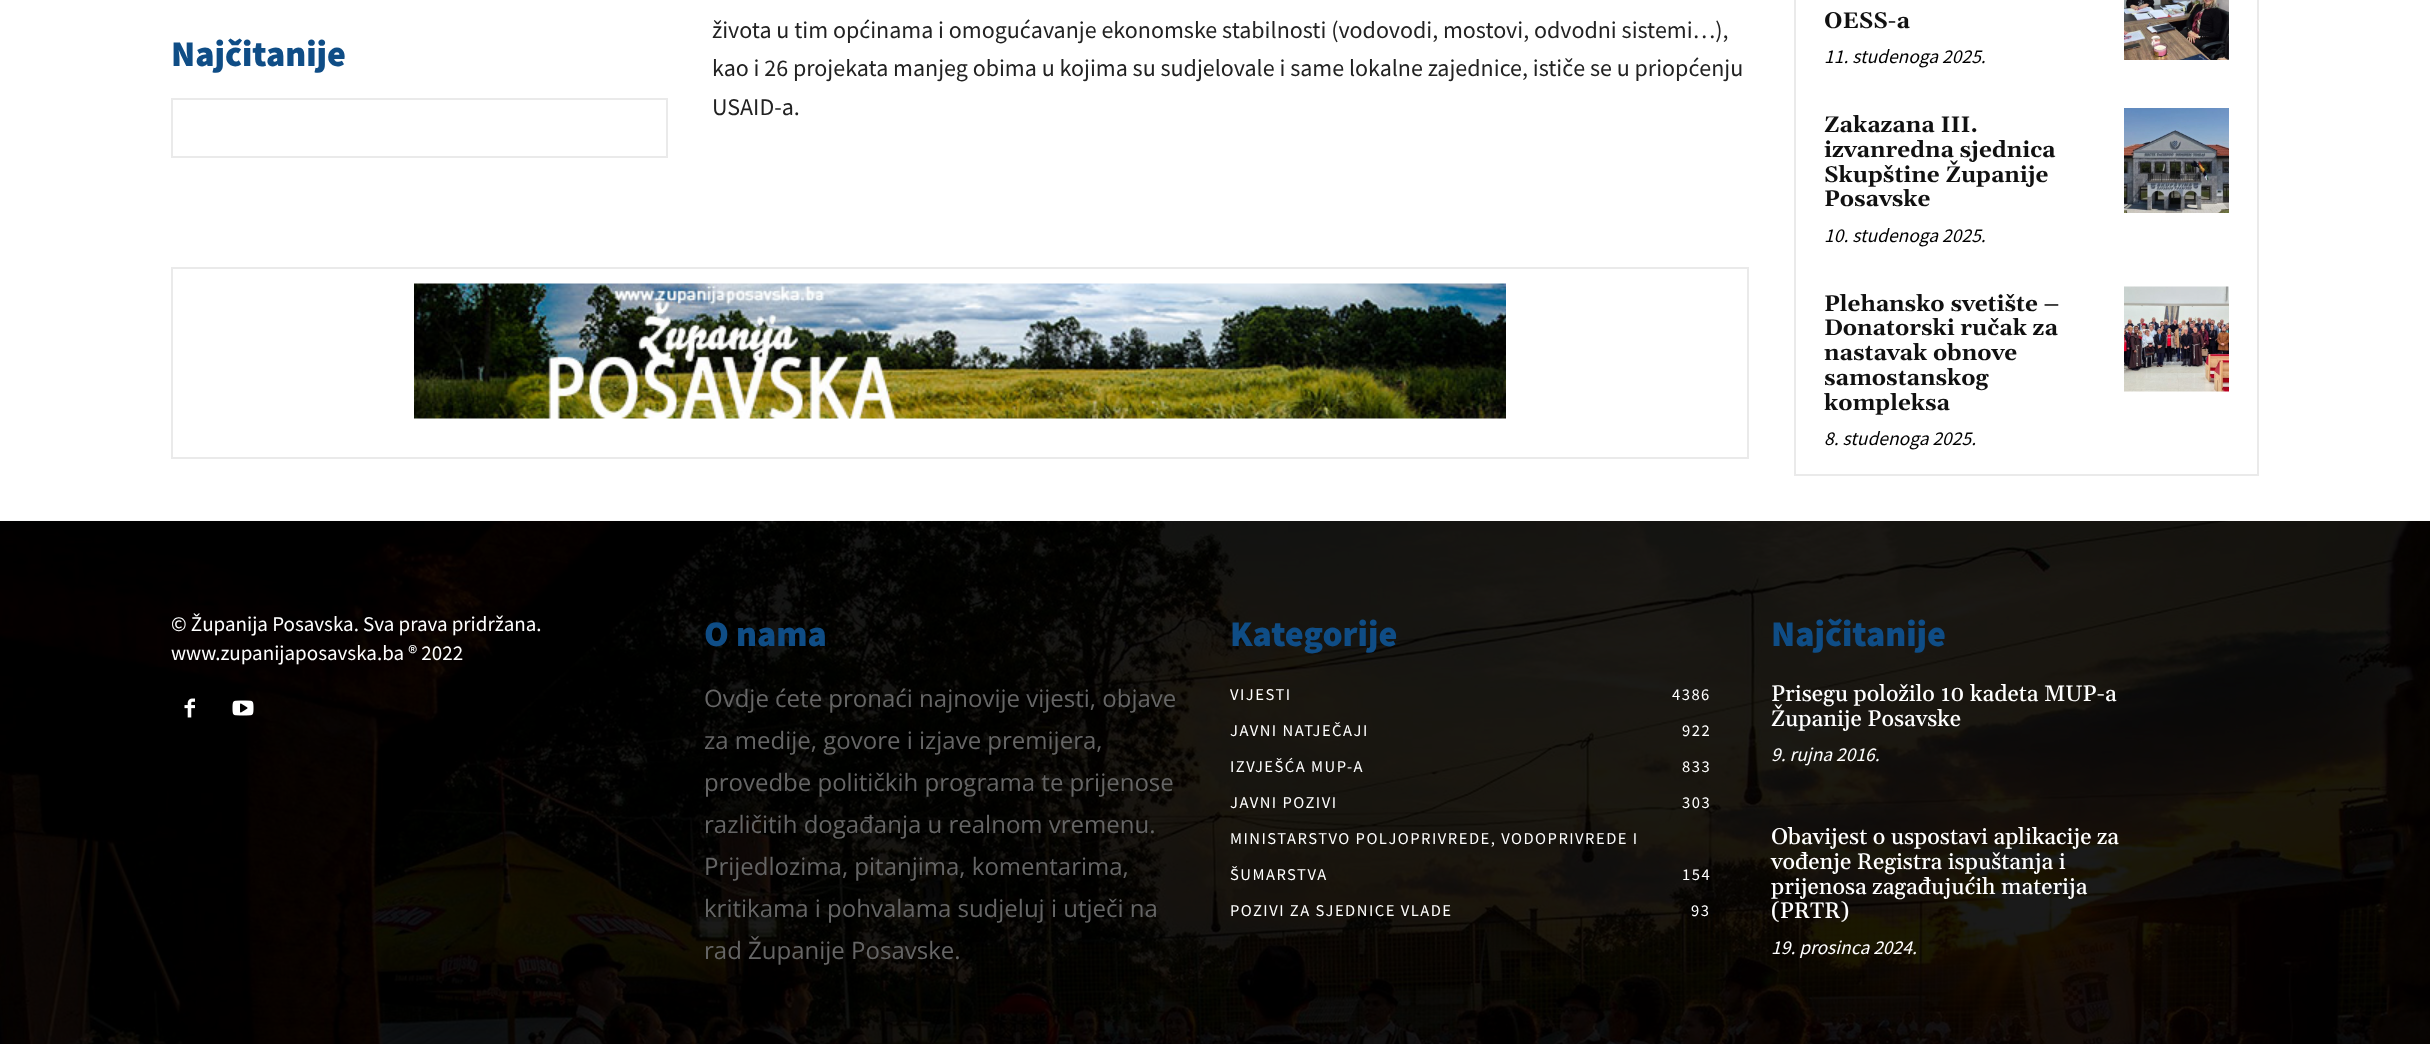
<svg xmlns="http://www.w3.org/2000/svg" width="2430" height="1044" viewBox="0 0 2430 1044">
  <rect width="100%" height="100%" fill="#fff"/>
  <path d="M172 99h495v58H172z" fill="none" stroke="#eaeaea" stroke-width="2"/>
  <path d="M172 268h1576v190H172z" fill="none" stroke="#eaeaea" stroke-width="2"/>
  <image x="414" y="283" width="1092" height="136" href="img/1.png"/>
  <path d="M1795 -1h463v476H1795z" fill="none" stroke="#eaeaea" stroke-width="2"/>
  <image x="2124" y="0" width="105" height="60" href="img/2.png"/>
  <image x="2124" y="108" width="105" height="105" href="img/3.png"/>
  <image x="2124" y="286" width="105" height="106" href="img/4.png"/>
  <path d="M0 521h2430v523H0z" fill="#000"/>
  <image x="0" y="520" width="2430" height="524" href="img/5.png"/>
  <image x="184" y="698" width="11" height="20" href="img/6.png"/>
  <image x="232" y="700" width="22" height="16" href="img/7.png"/>
  <text x="171" y="66" font-family="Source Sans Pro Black" font-size="36" font-weight="900" fill="#0f4d86">Najčitanije</text>
  <g font-family="Source Sans Pro" font-size="24" fill="#222">
    <text x="712" y="38">života u tim općinama i omogućavanje ekonomske stabilnosti (vodovodi, mostovi, odvodni sistemi…),</text>
    <text x="712" y="76">kao i 26 projekata manjeg obima u kojima su sudjelovale i same lokalne zajednice, ističe se u priopćenju</text>
    <text x="712" y="115">USAID-a.</text>
  </g>
  <text x="1824" y="28" font-family="Gelasio" font-size="22.5" font-weight="bold" fill="#111">OESS-a</text>
  <text x="1824" y="63" font-family="Source Sans Pro" font-size="19.5" font-style="italic" fill="#000">11. studenoga 2025.</text>
  <g font-family="Gelasio" font-size="22.5" font-weight="bold" fill="#111">
    <text x="1824" y="132">Zakazana III.</text>
    <text x="1824" y="157">izvanredna sjednica</text>
    <text x="1824" y="182">Skupštine Županije</text>
    <text x="1824" y="206">Posavske</text>
  </g>
  <text x="1824" y="242" font-family="Source Sans Pro" font-size="19.5" font-style="italic" fill="#000">10. studenoga 2025.</text>
  <g font-family="Gelasio" font-size="22.5" font-weight="bold" fill="#111">
    <text x="1824" y="311">Plehansko svetište –</text>
    <text x="1824" y="335">Donatorski ručak za</text>
    <text x="1824" y="360">nastavak obnove</text>
    <text x="1824" y="385">samostanskog</text>
    <text x="1824" y="410">kompleksa</text>
  </g>
  <text x="1824" y="445" font-family="Source Sans Pro" font-size="19.5" font-style="italic" fill="#000">8. studenoga 2025.</text>
  <g font-family="Source Sans Pro" font-size="21" fill="#fff">
    <text x="171" y="631">© Županija Posavska. Sva prava pridržana.</text>
    <text x="171" y="660">www.zupanijaposavska.ba ® 2022</text>
  </g>
  <text x="704" y="646" font-family="Source Sans Pro Black" font-size="36" font-weight="900" fill="#0f4d86">O nama</text>
  <g font-family="Open Sans" font-size="24" fill="#666">
    <text x="704" y="707">Ovdje ćete pronaći najnovije vijesti, objave</text>
    <text x="704" y="749">za medije, govore i izjave premijera,</text>
    <text x="704" y="791">provedbe političkih programa te prijenose</text>
    <text x="704" y="833">različitih događanja u realnom vremenu.</text>
    <text x="704" y="875">Prijedlozima, pitanjima, komentarima,</text>
    <text x="704" y="917">kritikama i pohvalama sudjeluj i utječi na</text>
    <text x="704" y="959">rad Županije Posavske.</text>
  </g>
  <text x="1230" y="646" font-family="Source Sans Pro Black" font-size="36" font-weight="900" fill="#0f4d86">Kategorije</text>
  <g font-family="Source Sans Pro" font-size="16.5" letter-spacing="1.5" fill="#fff">
    <text x="1230" y="700">VIJESTI</text>
    <text x="1672" y="700">4386</text>
    <text x="1230" y="736">JAVNI NATJEČAJI</text>
    <text x="1682" y="736">922</text>
    <text x="1230" y="772">IZVJEŠĆA MUP-A</text>
    <text x="1682" y="772">833</text>
    <text x="1230" y="808">JAVNI POZIVI</text>
    <text x="1682" y="808">303</text>
    <text x="1230" y="844">MINISTARSTVO POLJOPRIVREDE, VODOPRIVREDE I</text>
    <text x="1230" y="880">ŠUMARSTVA</text>
    <text x="1682" y="880">154</text>
    <text x="1230" y="916">POZIVI ZA SJEDNICE VLADE</text>
    <text x="1691" y="916">93</text>
  </g>
  <text x="1771" y="646" font-family="Source Sans Pro Black" font-size="36" font-weight="900" fill="#0f4d86">Najčitanije</text>
  <g font-family="Gelasio" font-size="22.5" font-weight="500" fill="#fff">
    <text x="1771" y="701">Prisegu položilo 10 kadeta MUP-a</text>
    <text x="1771" y="726">Županije Posavske</text>
  </g>
  <text x="1771" y="761" font-family="Source Sans Pro" font-size="19.5" font-style="italic" fill="#fff">9. rujna 2016.</text>
  <g font-family="Gelasio" font-size="22.5" font-weight="500" fill="#fff">
    <text x="1771" y="844">Obavijest o uspostavi aplikacije za</text>
    <text x="1771" y="869">vođenje Registra ispuštanja i</text>
    <text x="1771" y="894">prijenosa zagađujućih materija</text>
    <text x="1771" y="918">(PRTR)</text>
  </g>
  <text x="1771" y="954" font-family="Source Sans Pro" font-size="19.5" font-style="italic" fill="#fff">19. prosinca 2024.</text>
</svg>
